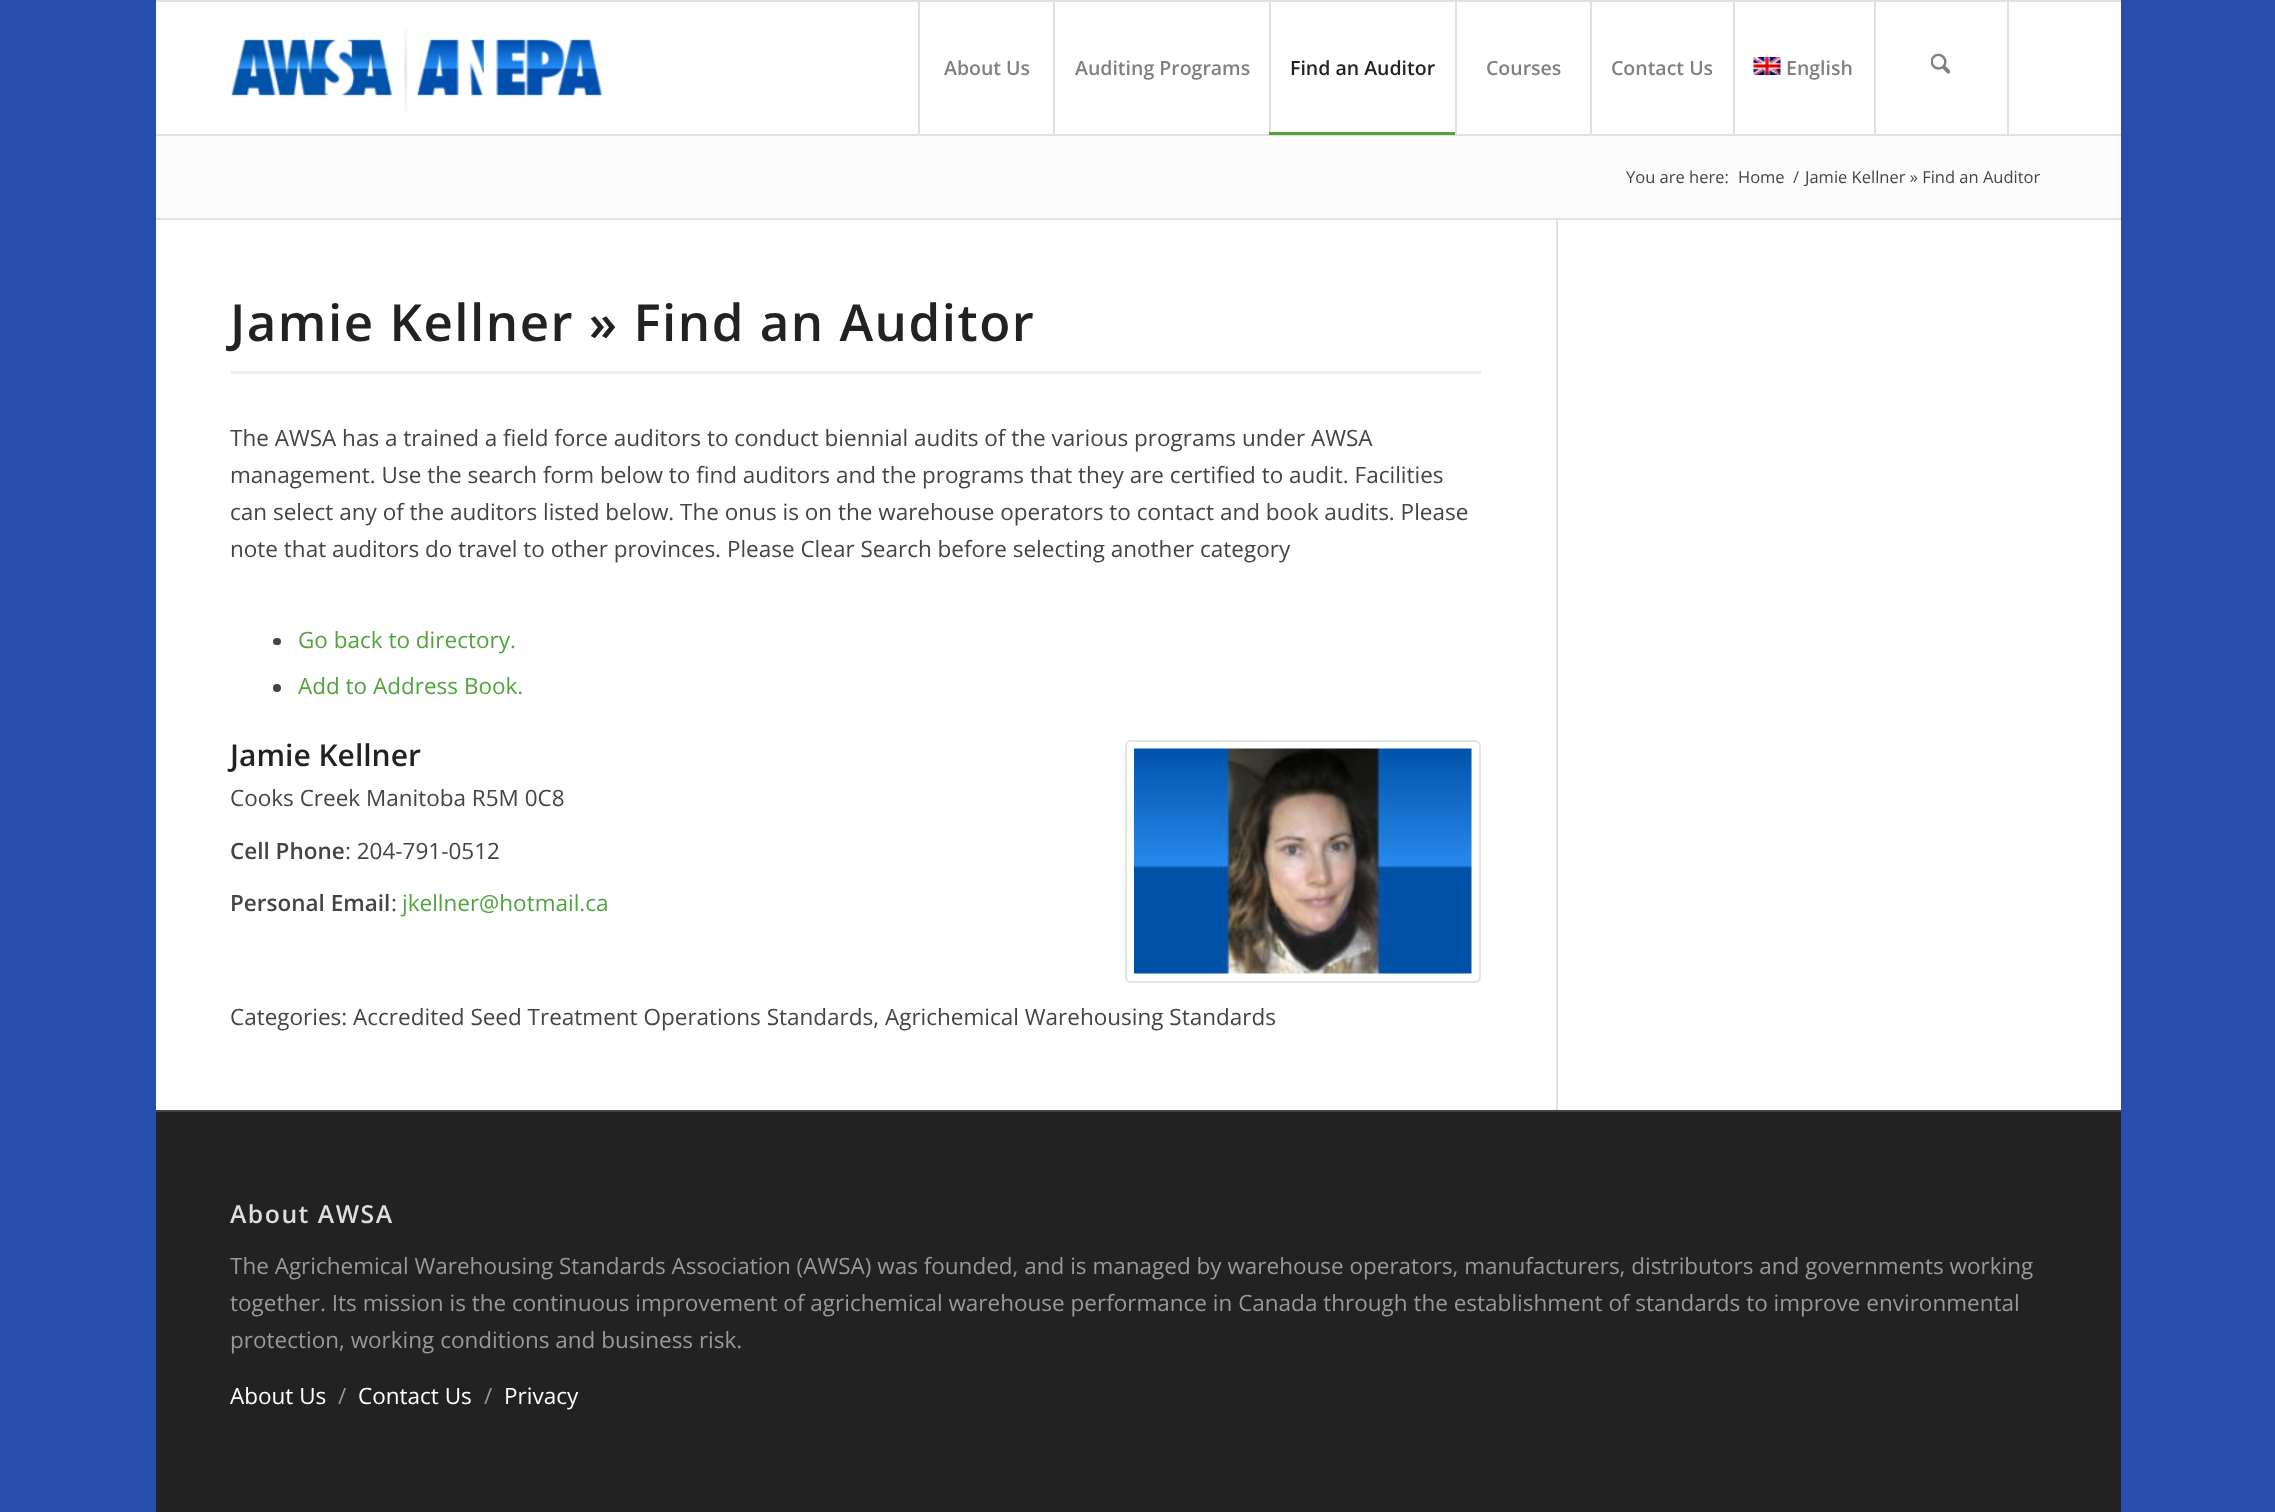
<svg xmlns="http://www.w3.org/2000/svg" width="2275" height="1512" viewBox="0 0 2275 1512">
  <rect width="100%" height="100%" fill="#274dad"/>
  <path d="M156 0h1965v2H156z" fill="#e1e1e1"/>
  <path d="M156 134h1965v2H156z" fill="#e1e1e1"/>
  <path d="M156 2h1965v130H156z" fill="#fff"/>
  <image x="231" y="28" width="372" height="86" href="img/1.png"/>
  <path d="M156 132h1965v2H156z" fill="#fefefe"/>
  <path d="M918 2h2v132H918z" fill="#e1e1e1"/>
  <path d="M1053 2h2v132H1053z" fill="#e1e1e1"/>
  <path d="M1269 2h2v132H1269z" fill="#e1e1e1"/>
  <path d="M1269 132h186v3H1269z" fill="#52a33e"/>
  <path d="M1455 2h2v132H1455z" fill="#e1e1e1"/>
  <path d="M1590 2h2v132H1590z" fill="#e1e1e1"/>
  <path d="M1733 2h2v132H1733z" fill="#e1e1e1"/>
  <image x="1753" y="57" width="28" height="18" href="img/2.png"/>
  <path d="M2007 2h2v132H2007z" fill="#e1e1e1"/>
  <path d="M1874 2h2v132H1874z" fill="#e1e1e1"/>
  <image x="1931" y="53" width="19" height="21" href="img/3.png"/>
  <path d="M156 220h1965v890H156z" fill="#fff"/>
  <path d="M156 136h1965v82H156z" fill="#fcfcfc"/>
  <path d="M156 218h1965v2H156z" fill="#e1e1e1"/>
  <path d="M1556 219h2v891H1556z" fill="#e1e1e1"/>
  <path d="M231 371h1250v3H231z" fill="#eee"/>
  <rect x="273" y="638" width="8" height="7" rx="3.5" fill="#444"/>
  <circle cx="277" cy="688" r="4" fill="#444"/>
  <rect x="1126" y="741" width="354" height="241" rx="5" fill="none" stroke="#e3e3e3" stroke-width="2"/>
  <image x="1134" y="748" width="338" height="226" href="img/4.png"/>
  <path d="M156 1112h1965v400H156z" fill="#222"/>
  <path d="M156 1110h1965v2H156z" fill="#444"/>
  <g font-family="Open Sans" font-size="19.5" font-weight="600" fill="#808080">
    <text x="944" y="75">About Us</text>
    <text x="1075" y="75">Auditing Programs</text>
  </g>
  <text x="1290" y="75" font-family="Open Sans" font-size="19.5" font-weight="600" fill="#222">Find an Auditor</text>
  <g font-family="Open Sans" font-size="19.5" font-weight="600" fill="#808080">
    <text x="1486" y="75">Courses</text>
    <text x="1611" y="75">Contact Us</text>
    <text x="1786" y="75">English</text>
  </g>
  <g font-family="Open Sans" font-size="16.5" fill="#444">
    <text x="1626" y="183">You are here:</text>
    <text x="1738" y="183">Home</text>
    <text x="1793" y="183">/</text>
    <text x="1805" y="183">Jamie Kellner » Find an Auditor</text>
  </g>
  <text x="230" y="341" font-family="Open Sans" font-size="51" font-weight="600" letter-spacing="1.5" fill="#222">Jamie Kellner » Find an Auditor</text>
  <g font-family="Open Sans" font-size="22.5" fill="#444">
    <text x="230" y="446">The AWSA has a trained a field force auditors to conduct biennial audits of the various programs under AWSA</text>
    <text x="230" y="483">management. Use the search form below to find auditors and the programs that they are certified to audit. Facilities</text>
    <text x="230" y="520">can select any of the auditors listed below. The onus is on the warehouse operators to contact and book audits. Please</text>
    <text x="230" y="557">note that auditors do travel to other provinces. Please Clear Search before selecting another category</text>
  </g>
  <g font-family="Open Sans" font-size="22.5" fill="#52a33e">
    <text x="298" y="648">Go back to directory.</text>
    <text x="298" y="694">Add to Address Book.</text>
  </g>
  <text x="230" y="766" font-family="Open Sans" font-size="30" font-weight="600" fill="#222">Jamie Kellner</text>
  <text x="230" y="806" font-family="Open Sans" font-size="22.5" fill="#444">Cooks Creek Manitoba R5M 0C8</text>
  <text x="230" y="859" font-family="Open Sans" font-size="22.5" font-weight="600" fill="#444">Cell Phone</text>
  <text x="345" y="859" font-family="Open Sans" font-size="22.5" fill="#444">: 204-791-0512</text>
  <text x="230" y="911" font-family="Open Sans" font-size="22.5" font-weight="600" fill="#444">Personal Email</text>
  <text x="391" y="911" font-family="Open Sans" font-size="22.5" fill="#444">:</text>
  <text x="402" y="911" font-family="Open Sans" font-size="22.5" fill="#52a33e">jkellner@hotmail.ca</text>
  <text x="230" y="1025" font-family="Open Sans" font-size="22.5" fill="#444">Categories: Accredited Seed Treatment Operations Standards, Agrichemical Warehousing Standards</text>
  <text x="230" y="1223" font-family="Open Sans" font-size="24.75" font-weight="600" letter-spacing="1.5" fill="#ddd">About AWSA</text>
  <g font-family="Open Sans" font-size="22.5" fill="#999">
    <text x="230" y="1274">The Agrichemical Warehousing Standards Association (AWSA) was founded, and is managed by warehouse operators, manufacturers, distributors and governments working</text>
    <text x="230" y="1311">together. Its mission is the continuous improvement of agrichemical warehouse performance in Canada through the establishment of standards to improve environmental</text>
    <text x="230" y="1348">protection, working conditions and business risk.</text>
  </g>
  <text x="230" y="1404" font-family="Open Sans" font-size="22.5" fill="#fff">About Us</text>
  <text x="338" y="1404" font-family="Open Sans" font-size="22.5" fill="#999">/</text>
  <text x="358" y="1404" font-family="Open Sans" font-size="22.5" fill="#fff">Contact Us</text>
  <text x="484" y="1404" font-family="Open Sans" font-size="22.5" fill="#999">/</text>
  <text x="504" y="1404" font-family="Open Sans" font-size="22.5" fill="#fff">Privacy</text>
</svg>
